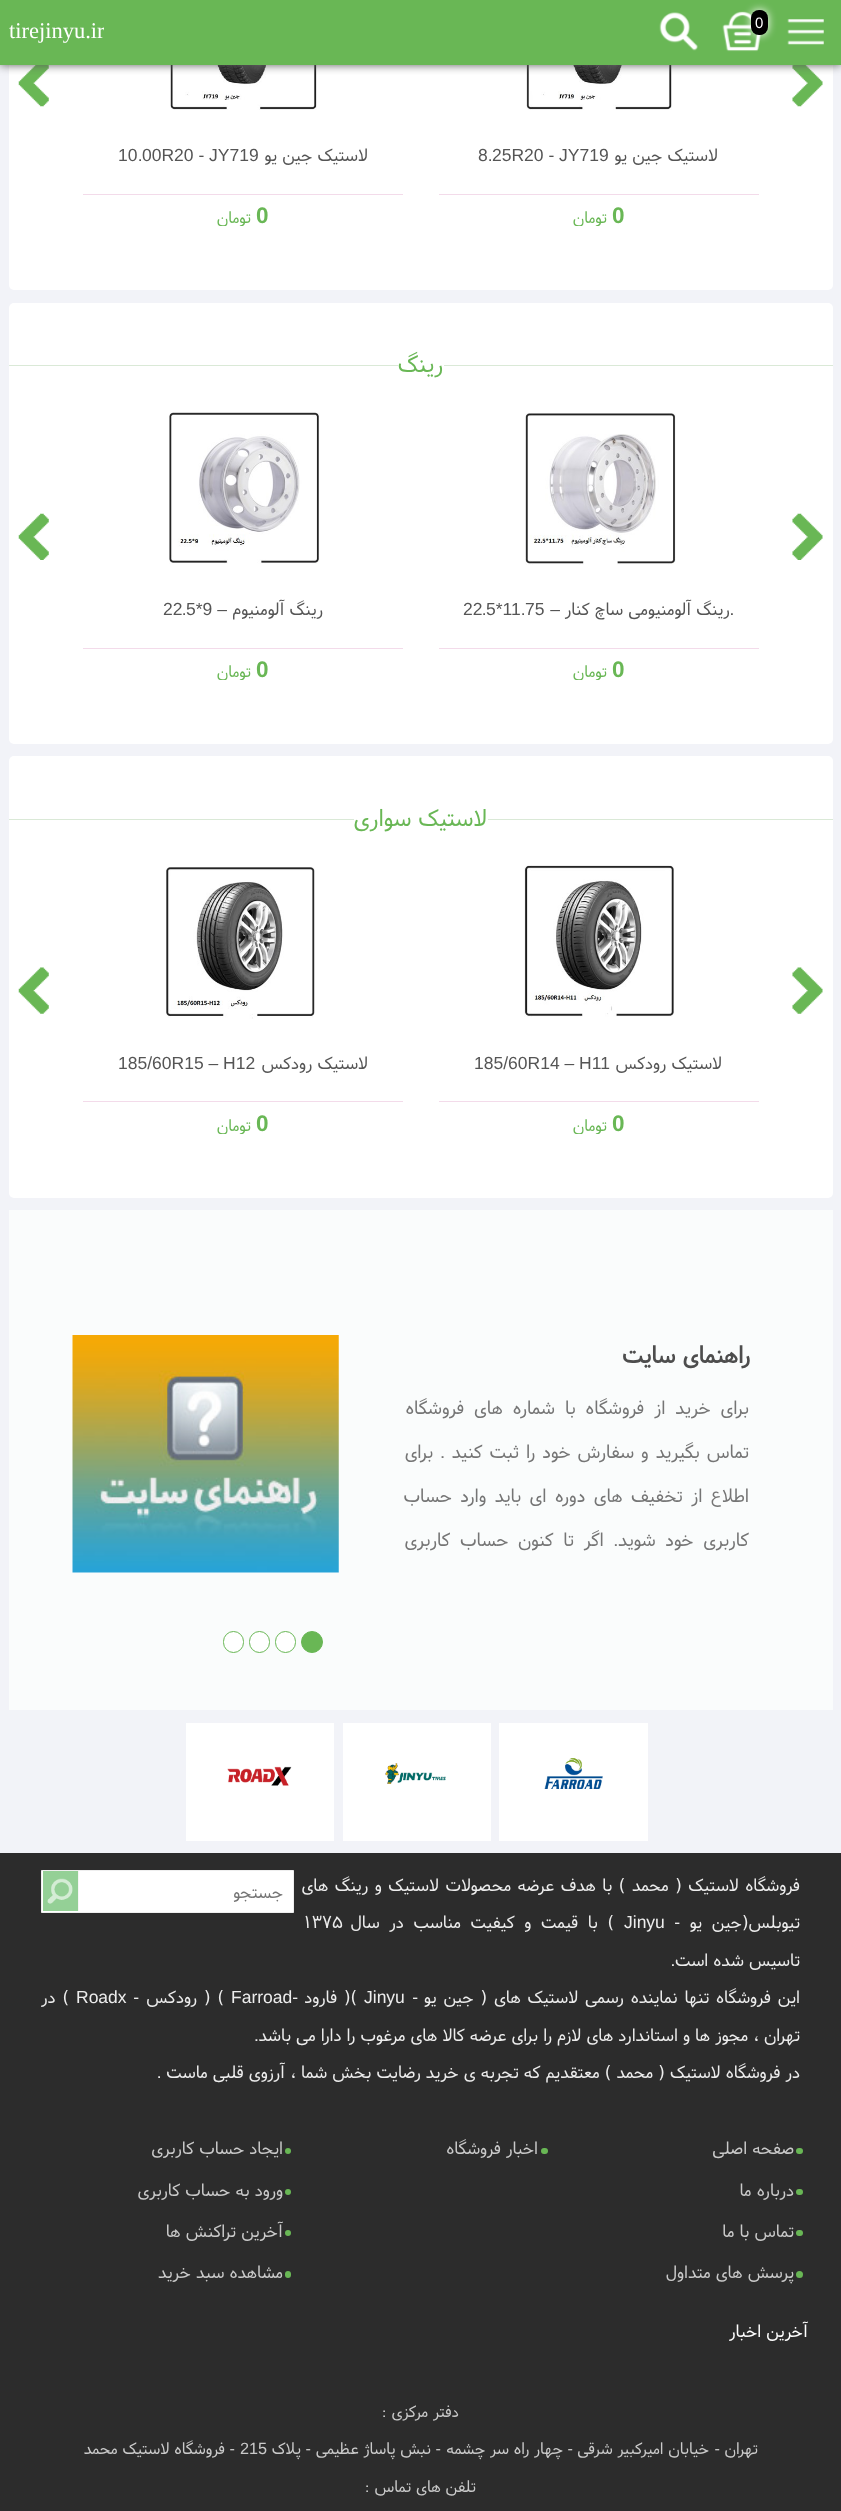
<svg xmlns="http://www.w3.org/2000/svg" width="841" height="2511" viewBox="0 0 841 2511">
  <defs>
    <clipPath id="clip1"><path d="M9 18h95v26H9z"/></clipPath>
    <clipPath id="clip2"><path d="M441 205h314v21H441z"/></clipPath>
    <clipPath id="clip3"><path d="M86 205h314v21H86z"/></clipPath>
    <clipPath id="clip4"><path d="M441 659h314v21H441z"/></clipPath>
    <clipPath id="clip5"><path d="M86 659h314v21H86z"/></clipPath>
    <clipPath id="clip6"><path d="M441 1113h314v21H441z"/></clipPath>
    <clipPath id="clip7"><path d="M86 1113h314v21H86z"/></clipPath>
  </defs>
  <rect width="100%" height="100%" fill="#f2f3f8"/>
  <rect x="9" y="-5" width="824" height="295" rx="5" fill="#fff"/>
  <image x="792" y="65" width="31" height="42" href="img/4.png"/>
  <image x="18" y="65" width="31" height="42" href="img/5.png"/>
  <image x="526" y="65" width="146" height="45" href="img/6.png"/>
  <image x="170" y="65" width="147" height="45" href="img/7.png"/>
  <path d="M0 0h841v65H0z" fill="#5b5b5b" filter="blur(5px)"/>
  <path d="M0 0h841v65H0z" fill="#69b755"/>
  <image x="787" y="19" width="37" height="26" href="img/1.png"/>
  <image x="722" y="11" width="39" height="41" href="img/2.png"/>
  <rect x="751" y="10" width="17" height="25" rx="8" fill="#fff" filter="blur(4px)"/>
  <rect x="751" y="10" width="17" height="25" rx="8" fill="#000"/>
  <image x="659" y="12" width="39" height="39" href="img/3.png"/>
  <path d="M439 194h320v1H439z" fill="#f3dbea"/>
  <path d="M83 194h320v1H83z" fill="#f3dbea"/>
  <rect x="9" y="303" width="824" height="441" rx="5" fill="#fff"/>
  <path d="M9 365h824v1H9z" fill="#dae9d7"/>
  <path d="M398 365h46v1H398z" fill="#fff"/>
  <image x="792" y="513" width="31" height="47" href="img/8.png"/>
  <image x="18" y="513" width="31" height="47" href="img/9.png"/>
  <image x="525" y="413" width="151" height="152" href="img/10.png"/>
  <path d="M439 648h320v1H439z" fill="#f3dbea"/>
  <image x="169" y="412" width="151" height="152" href="img/11.png"/>
  <path d="M83 648h320v1H83z" fill="#f3dbea"/>
  <rect x="9" y="756" width="824" height="442" rx="5" fill="#fff"/>
  <path d="M9 819h824v1H9z" fill="#dae9d7"/>
  <path d="M354 819h134v1H354z" fill="#fff"/>
  <image x="792" y="967" width="31" height="47" href="img/12.png"/>
  <image x="18" y="967" width="31" height="47" href="img/13.png"/>
  <image x="524" y="865" width="150" height="152" href="img/14.png"/>
  <path d="M439 1101h320v1H439z" fill="#f3dbea"/>
  <image x="166" y="867" width="149" height="152" href="img/15.png"/>
  <path d="M83 1101h320v1H83z" fill="#f3dbea"/>
  <path d="M9 1210h824v500H9z" fill="#fafcfc"/>
  <image x="72" y="1335" width="267" height="238" href="img/16.png"/>
  <circle cx="312" cy="1642" r="10.5" fill="#69b755" stroke="#69b755"/>
  <rect x="275.5" y="1631.5" width="20" height="21" rx="10" fill="#fff" stroke="#69b755"/>
  <rect x="249.5" y="1631.5" width="20" height="21" rx="10" fill="#fff" stroke="#69b755"/>
  <rect x="223.5" y="1631.5" width="20" height="21" rx="10" fill="#fff" stroke="#69b755"/>
  <path d="M499 1723h149v118H499z" fill="#fff"/>
  <image x="544" y="1758" width="59" height="31" href="img/17.png"/>
  <path d="M343 1723h148v118H343z" fill="#fff"/>
  <image x="385" y="1763" width="61" height="21" href="img/18.png"/>
  <path d="M186 1723h148v118H186z" fill="#fff"/>
  <image x="227" y="1766" width="65" height="20" href="img/19.png"/>
  <path d="M0 1853h841v658H0z" fill="#2c2c2c"/>
  <path d="M41.5 1870.5h252v42H41.5z" fill="#fff" stroke="#eee"/>
  <path d="M43 1871h35v40H43z" fill="#94d096"/>
  <path d="M78 1871h1v40H78z" fill="#f5f5f5"/>
  <image x="47" y="1878" width="26" height="26" href="img/20.png"/>
  <rect x="796" y="2148" width="7" height="6" rx="3" fill="#69b755"/>
  <rect x="796" y="2189" width="7" height="6" rx="3" fill="#69b755"/>
  <rect x="796" y="2230" width="7" height="6" rx="3" fill="#69b755"/>
  <circle cx="799.5" cy="2274.5" r="3.5" fill="#69b755"/>
  <rect x="541" y="2148" width="7" height="6" rx="3" fill="#69b755"/>
  <circle cx="288" cy="2151" r="3" fill="#69b755"/>
  <circle cx="288" cy="2192" r="3" fill="#69b755"/>
  <circle cx="288" cy="2233" r="3" fill="#69b755"/>
  <rect x="285" y="2271" width="6" height="7" rx="3" fill="#69b755"/>
  <text x="755" y="28" font-family="Liberation Sans" font-size="15" fill="#fff">0</text>
  <g clip-path="url(#clip1)">
    <text x="9" y="38" font-family="Liberation Serif" font-size="22.5" fill="#fff">tirejinyu.ir</text>
  </g>
  <text x="718" y="161" font-family="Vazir" font-size="17.5" direction="rtl" fill="#555">لاستیک جین یو</text>
  <text x="492" y="161" font-family="Liberation Sans" font-size="17.5" fill="#555">25R20 - JY719</text>
  <text x="488" y="161" font-family="Vazir" font-size="17.5" fill="#555">.</text>
  <text x="478" y="161" font-family="Liberation Sans" font-size="17.5" fill="#555">8</text>
  <text x="612" y="223" font-family="Liberation Sans" font-size="22.5" font-weight="bold" fill="#69b755">0</text>
  <g clip-path="url(#clip2)">
    <text x="607" y="223" font-family="Vazir" font-size="16.25" direction="rtl" fill="#69b755">تومان</text>
  </g>
  <text x="368" y="161" font-family="Vazir" font-size="17.5" direction="rtl" fill="#555">لاستیک جین یو</text>
  <text x="142" y="161" font-family="Liberation Sans" font-size="17.5" fill="#555">00R20 - JY719</text>
  <text x="138" y="161" font-family="Vazir" font-size="17.5" fill="#555">.</text>
  <text x="118" y="161" font-family="Liberation Sans" font-size="17.5" fill="#555">10</text>
  <text x="256" y="223" font-family="Liberation Sans" font-size="22.5" font-weight="bold" fill="#69b755">0</text>
  <g clip-path="url(#clip3)">
    <text x="251" y="223" font-family="Vazir" font-size="16.25" direction="rtl" fill="#69b755">تومان</text>
  </g>
  <text x="443" y="372" font-family="Vazir" font-size="23.75" direction="rtl" fill="#69b755">رینگ</text>
  <text x="734" y="615" font-family="Vazir" font-size="17.5" direction="rtl" fill="#555">.رینگ آلومنیومی ساچ کنار</text>
  <text x="560" y="615" font-family="Liberation Sans" font-size="17.5" direction="rtl" fill="#555">–</text>
  <g font-family="Liberation Sans" font-size="17.5" fill="#555">
    <text x="525" y="615">75</text>
    <text x="486" y="615">5*11</text>
    <text x="463" y="615">22</text>
  </g>
  <g font-family="Vazir" font-size="17.5" fill="#555">
    <text x="521" y="615">.</text>
    <text x="482" y="615">.</text>
  </g>
  <text x="612" y="677" font-family="Liberation Sans" font-size="22.5" font-weight="bold" fill="#69b755">0</text>
  <g clip-path="url(#clip4)">
    <text x="607" y="677" font-family="Vazir" font-size="16.25" direction="rtl" fill="#69b755">تومان</text>
  </g>
  <text x="323" y="615" font-family="Vazir" font-size="17.5" direction="rtl" fill="#555">رینگ آلومنیوم</text>
  <text x="227" y="615" font-family="Liberation Sans" font-size="17.5" direction="rtl" fill="#555">–</text>
  <g font-family="Liberation Sans" font-size="17.5" fill="#555">
    <text x="186" y="615">5*9</text>
    <text x="163" y="615">22</text>
  </g>
  <text x="182" y="615" font-family="Vazir" font-size="17.5" fill="#555">.</text>
  <text x="256" y="677" font-family="Liberation Sans" font-size="22.5" font-weight="bold" fill="#69b755">0</text>
  <g clip-path="url(#clip5)">
    <text x="251" y="677" font-family="Vazir" font-size="16.25" direction="rtl" fill="#69b755">تومان</text>
  </g>
  <text x="487" y="826" font-family="Vazir" font-size="23.75" direction="rtl" fill="#69b755">لاستیک سواری</text>
  <text x="722" y="1069" font-family="Vazir" font-size="17.5" direction="rtl" fill="#555">لاستیک رودکس</text>
  <text x="474" y="1069" font-family="Liberation Sans" font-size="17.5" fill="#555">185/60R14 – H11</text>
  <text x="612" y="1131" font-family="Liberation Sans" font-size="22.5" font-weight="bold" fill="#69b755">0</text>
  <g clip-path="url(#clip6)">
    <text x="607" y="1131" font-family="Vazir" font-size="16.25" direction="rtl" fill="#69b755">تومان</text>
  </g>
  <text x="368" y="1069" font-family="Vazir" font-size="17.5" direction="rtl" fill="#555">لاستیک رودکس</text>
  <text x="118" y="1069" font-family="Liberation Sans" font-size="17.5" fill="#555">185/60R15 – H12</text>
  <text x="256" y="1131" font-family="Liberation Sans" font-size="22.5" font-weight="bold" fill="#69b755">0</text>
  <g clip-path="url(#clip7)">
    <text x="251" y="1131" font-family="Vazir" font-size="16.25" direction="rtl" fill="#69b755">تومان</text>
  </g>
  <text x="750" y="1363" font-family="Vazir" font-size="23.75" font-weight="bold" direction="rtl" fill="#4d4d4d">راهنمای سایت</text>
  <g font-family="Vazir" font-size="18.75" direction="rtl" fill="#757575">
    <text x="749" y="1414" word-spacing="4.5">برای خرید از فروشگاه با شماره های فروشگاه</text>
    <text x="749" y="1458" word-spacing="1.5">تماس بگیرید و سفارش خود را ثبت کنید . برای</text>
    <text x="749" y="1502" word-spacing="3">اطلاع از تخفیف های دوره ای باید وارد حساب</text>
    <text x="749" y="1546" word-spacing="4.25">کاربری خود شوید. اگر تا کنون حساب کاربری</text>
  </g>
  <g font-family="Vazir" font-size="17.5" direction="rtl" fill="#ededed">
    <text x="800" y="1891" word-spacing="1.4">فروشگاه لاستیک ( محمد ) با هدف عرضه محصولات لاستیک و رینگ های</text>
    <text x="800" y="1928" word-spacing="4.5">تیوبلس(جین یو</text>
  </g>
  <text x="680" y="1928" font-family="Liberation Sans" font-size="17.5" direction="rtl" fill="#ededed">-</text>
  <text x="624" y="1928" font-family="Liberation Sans" font-size="17.5" fill="#ededed">Jinyu</text>
  <text x="614" y="1928" word-spacing="4.5" font-family="Vazir" font-size="17.5" direction="rtl" fill="#ededed">) با قیمت و کیفیت مناسب در سال</text>
  <text x="302" y="1928" font-family="Vazir" font-size="17.5" fill="#ededed">۱۳۷۵</text>
  <g font-family="Vazir" font-size="17.5" direction="rtl" fill="#ededed">
    <text x="800" y="1966">تاسیس شده است.</text>
    <text x="800" y="2003" word-spacing="1.75">این فروشگاه تنها نماینده رسمی لاستیک های ( جین یو</text>
  </g>
  <text x="418" y="2003" font-family="Liberation Sans" font-size="17.5" direction="rtl" fill="#ededed">-</text>
  <text x="364" y="2003" font-family="Liberation Sans" font-size="17.5" fill="#ededed">Jinyu</text>
  <text x="357" y="2003" word-spacing="1.75" font-family="Vazir" font-size="17.5" direction="rtl" fill="#ededed">)( فارود</text>
  <text x="298" y="2003" font-family="Liberation Sans" font-size="17.5" direction="rtl" fill="#ededed">-</text>
  <text x="231" y="2003" font-family="Liberation Sans" font-size="17.5" fill="#ededed">Farroad</text>
  <text x="224" y="2003" word-spacing="1.75" font-family="Vazir" font-size="17.5" direction="rtl" fill="#ededed">) ( رودکس</text>
  <text x="139" y="2003" font-family="Liberation Sans" font-size="17.5" direction="rtl" fill="#ededed">-</text>
  <text x="76" y="2003" font-family="Liberation Sans" font-size="17.5" fill="#ededed">Roadx</text>
  <g font-family="Vazir" font-size="17.5" direction="rtl" fill="#ededed">
    <text x="69" y="2003" word-spacing="1.75">) در</text>
    <text x="800" y="2041">تهران</text>
    <text x="759" y="2041">، مجوز ها و استاندارد های لازم را برای عرضه کالا های مرغوب را دارا می باشد.</text>
    <text x="800" y="2078">در فروشگاه لاستیک ( محمد ) معتقدیم که تجربه ی خرید رضایت بخش شما ، آرزوی قلبی ماست .</text>
  </g>
  <text x="283" y="1898" font-family="Vazir" font-size="17.5" direction="rtl" fill="#757575">جستجو</text>
  <g font-family="Vazir" font-size="17.5" direction="rtl" fill="#cacaca">
    <text x="794" y="2154">صفحه اصلی</text>
    <text x="794" y="2196">درباره ما</text>
    <text x="794" y="2237">تماس با ما</text>
    <text x="794" y="2278">پرسش های متداول</text>
    <text x="538" y="2154">اخبار فروشگاه</text>
    <text x="283" y="2154">ایجاد حساب کاربری</text>
    <text x="283" y="2196">ورود به حساب کاربری</text>
    <text x="283" y="2237">آخرین تراکنش ها</text>
    <text x="283" y="2278">مشاهده سبد خرید</text>
  </g>
  <text x="808" y="2337" font-family="Vazir" font-size="17.5" direction="rtl" fill="#fff">آخرین اخبار</text>
  <g font-family="Vazir" font-size="16.25" direction="rtl" fill="#cacaca">
    <text x="459" y="2417">دفتر مرکزی :</text>
    <text x="758" y="2454">تهران</text>
  </g>
  <text x="720" y="2454" font-family="Liberation Sans" font-size="16.25" direction="rtl" fill="#cacaca">-</text>
  <text x="709" y="2454" font-family="Vazir" font-size="16.25" direction="rtl" fill="#cacaca">خیابان امیرکبیر شرقی</text>
  <text x="573" y="2454" font-family="Liberation Sans" font-size="16.25" direction="rtl" fill="#cacaca">-</text>
  <text x="563" y="2454" font-family="Vazir" font-size="16.25" direction="rtl" fill="#cacaca">چهار راه سر چشمه</text>
  <text x="441" y="2454" font-family="Liberation Sans" font-size="16.25" direction="rtl" fill="#cacaca">-</text>
  <text x="431" y="2454" font-family="Vazir" font-size="16.25" direction="rtl" fill="#cacaca">نبش پاساژ عظیمی</text>
  <text x="311" y="2454" font-family="Liberation Sans" font-size="16.25" direction="rtl" fill="#cacaca">-</text>
  <text x="301" y="2454" font-family="Vazir" font-size="16.25" direction="rtl" fill="#cacaca">پلاک</text>
  <text x="240" y="2454" font-family="Liberation Sans" font-size="16.25" fill="#cacaca">215</text>
  <text x="235" y="2454" font-family="Liberation Sans" font-size="16.25" direction="rtl" fill="#cacaca">-</text>
  <g font-family="Vazir" font-size="16.25" direction="rtl" fill="#cacaca">
    <text x="225" y="2454">فروشگاه لاستیک محمد</text>
    <text x="476" y="2492">تلفن های تماس :</text>
  </g>
</svg>
